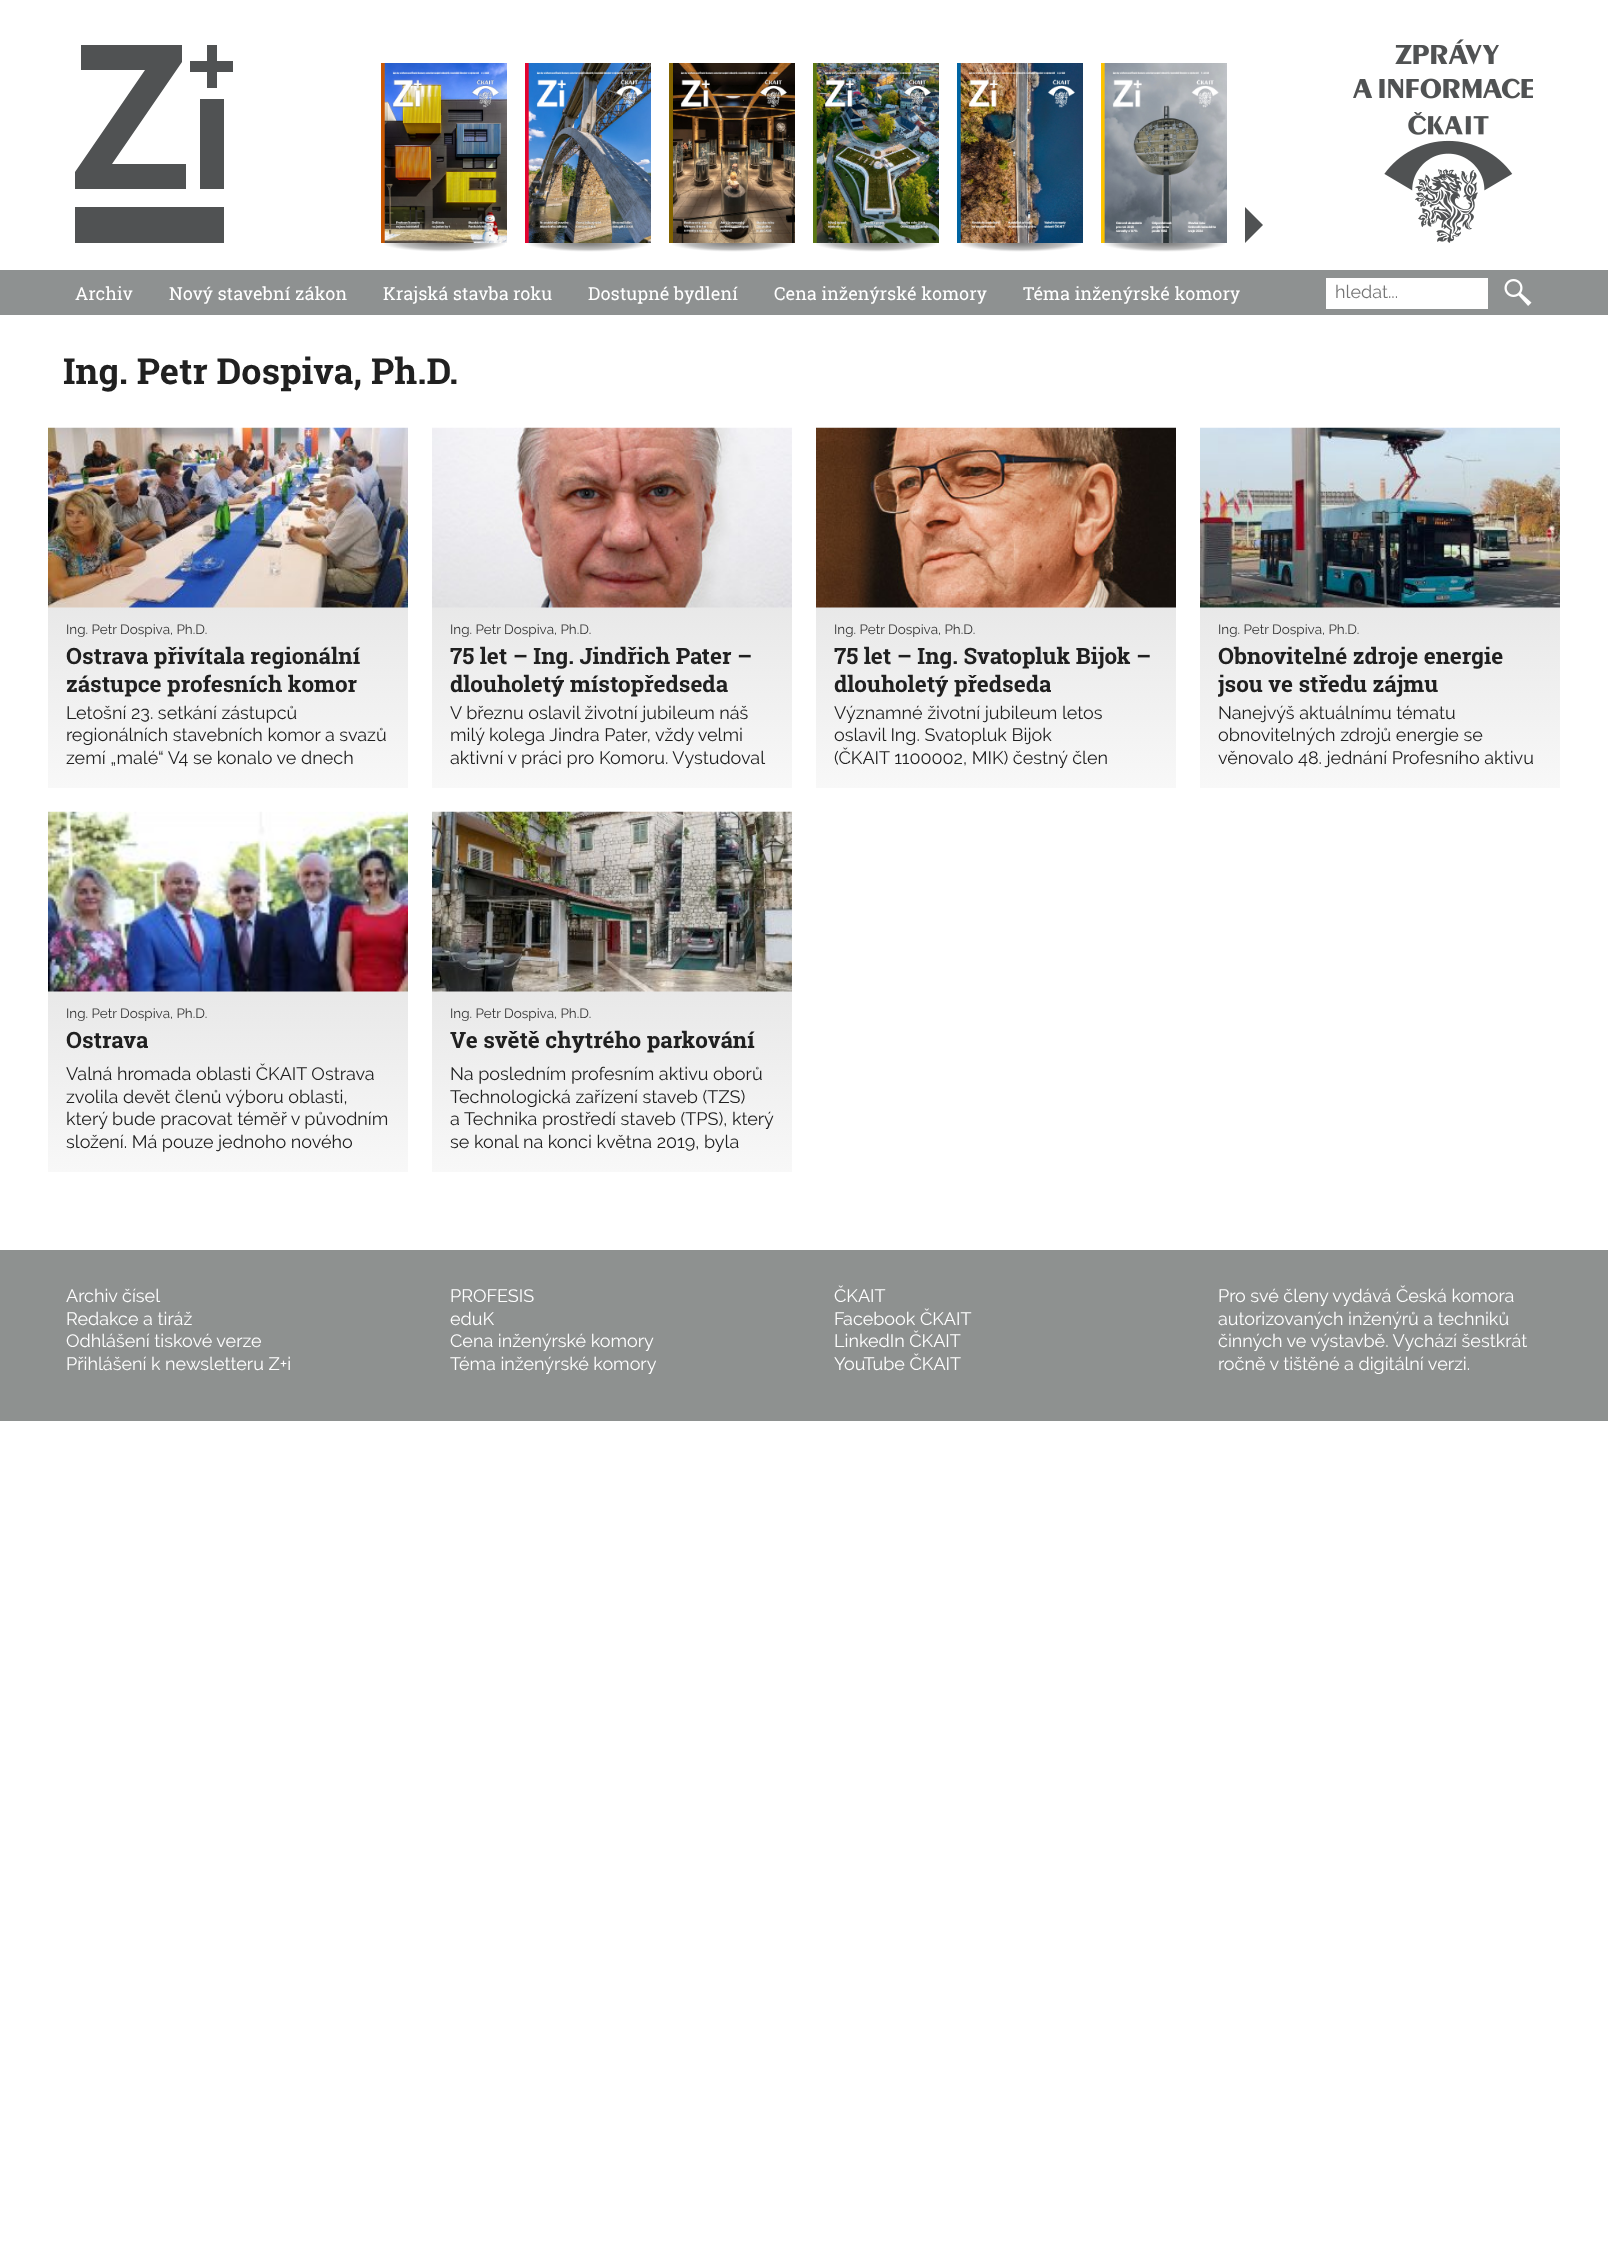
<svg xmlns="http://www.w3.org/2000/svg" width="1608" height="2265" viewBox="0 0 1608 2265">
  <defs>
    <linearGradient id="g1" gradientUnits="userSpaceOnUse" x1="228" y1="428" x2="228" y2="788"><stop offset="0" stop-color="#d9d9d9"/><stop offset="1" stop-color="#f8f8f8"/></linearGradient>
    <linearGradient id="g2" gradientUnits="userSpaceOnUse" x1="612" y1="428" x2="612" y2="788"><stop offset="0" stop-color="#d9d9d9"/><stop offset="1" stop-color="#f8f8f8"/></linearGradient>
    <linearGradient id="g3" gradientUnits="userSpaceOnUse" x1="996" y1="428" x2="996" y2="788"><stop offset="0" stop-color="#d9d9d9"/><stop offset="1" stop-color="#f8f8f8"/></linearGradient>
    <linearGradient id="g4" gradientUnits="userSpaceOnUse" x1="1380" y1="428" x2="1380" y2="788"><stop offset="0" stop-color="#d9d9d9"/><stop offset="1" stop-color="#f8f8f8"/></linearGradient>
    <linearGradient id="g5" gradientUnits="userSpaceOnUse" x1="228" y1="812" x2="228" y2="1172"><stop offset="0" stop-color="#d9d9d9"/><stop offset="1" stop-color="#f8f8f8"/></linearGradient>
    <linearGradient id="g6" gradientUnits="userSpaceOnUse" x1="612" y1="812" x2="612" y2="1172"><stop offset="0" stop-color="#d9d9d9"/><stop offset="1" stop-color="#f8f8f8"/></linearGradient>
    <clipPath id="clip1"><path d="M1218 642h324v59H1218z"/></clipPath>
  </defs>
  <rect width="100%" height="100%" fill="#fff"/>
  <path d="M186 189H75V172L145 70H81V45H182V62L112 164H186ZM217 88H207V72H190V61H207V45H217V61H233V72H217ZM224 189H200V99H224Z" fill="#505253"/>
  <image x="1353" y="39" width="180" height="204" href="img/1.png"/>
  <path d="M75 207h149v36H75z" fill="#505253"/>
  <image x="384" y="243" width="121" height="9" href="img/2.png"/>
  <image x="381" y="63" width="126" height="180" href="img/3.png"/>
  <image x="528" y="243" width="121" height="9" href="img/4.png"/>
  <image x="525" y="63" width="126" height="180" href="img/5.png"/>
  <image x="672" y="243" width="121" height="9" href="img/2.png"/>
  <image x="669" y="63" width="126" height="180" href="img/6.png"/>
  <image x="816" y="243" width="121" height="9" href="img/2.png"/>
  <image x="813" y="63" width="126" height="180" href="img/7.png"/>
  <image x="960" y="243" width="121" height="9" href="img/2.png"/>
  <image x="957" y="63" width="126" height="180" href="img/8.png"/>
  <image x="1104" y="243" width="121" height="9" href="img/2.png"/>
  <image x="1101" y="63" width="126" height="180" href="img/9.png"/>
  <path d="M1245 243V207L1263 225Z" fill="#505253"/>
  <path d="M0 270h1608v45H0z" fill="#8e9191"/>
  <path d="M1326 278h162v31H1326z" fill="#fff"/>
  <image x="1504" y="279" width="28" height="27" href="img/10.png"/>
  <path d="M48 607h360v181H48z" fill="url(#g1)"/>
  <image x="48" y="427" width="360" height="181" href="img/11.png"/>
  <path d="M432 607h360v181H432z" fill="url(#g2)"/>
  <image x="432" y="427" width="360" height="181" href="img/12.png"/>
  <path d="M816 607h360v181H816z" fill="url(#g3)"/>
  <image x="816" y="427" width="360" height="181" href="img/13.png"/>
  <path d="M1200 607h360v181H1200z" fill="url(#g4)"/>
  <image x="1200" y="427" width="360" height="181" href="img/14.png"/>
  <path d="M48 991h360v181H48z" fill="url(#g5)"/>
  <image x="48" y="811" width="360" height="181" href="img/15.png"/>
  <path d="M432 991h360v181H432z" fill="url(#g6)"/>
  <image x="432" y="811" width="360" height="181" href="img/16.png"/>
  <path d="M0 1250h1608v171H0z" fill="#8e9190"/>
  <g font-family="Roboto Slab" font-size="18" fill="#fff">
    <text x="75" y="300">Archiv</text>
    <text x="169" y="300">Nový stavební zákon</text>
    <text x="383" y="300">Krajská stavba roku</text>
    <text x="588" y="300">Dostupné bydlení</text>
    <text x="774" y="300">Cena inženýrské komory</text>
    <text x="1023" y="300">Téma inženýrské komory</text>
  </g>
  <text x="1335" y="298" font-family="Raleway" font-size="18" fill="#757575">hledat...</text>
  <text x="63" y="384" font-family="Roboto Slab" font-size="36" font-weight="bold" fill="#202020">Ing. Petr Dospiva, Ph.D.</text>
  <text x="66" y="634" font-family="Raleway" font-size="13.5" fill="#333">Ing. Petr Dospiva, Ph.D.</text>
  <g font-family="Roboto Slab" font-size="22.5" font-weight="bold" fill="#202020">
    <text x="66" y="664">Ostrava přivítala regionální</text>
    <text x="66" y="692">zástupce profesních komor</text>
  </g>
  <g font-family="Raleway" font-size="18" fill="#202020">
    <text x="66" y="719">Letošní 23. setkání zástupců</text>
    <text x="66" y="741">regionálních stavebních komor a svazů</text>
    <text x="66" y="764">zemí „malé“ V4 se konalo ve dnech</text>
  </g>
  <text x="450" y="634" font-family="Raleway" font-size="13.5" fill="#333">Ing. Petr Dospiva, Ph.D.</text>
  <g font-family="Roboto Slab" font-size="22.5" font-weight="bold" fill="#202020">
    <text x="450" y="664">75 let – Ing. Jindřich Pater –</text>
    <text x="450" y="692">dlouholetý místopředseda</text>
  </g>
  <g font-family="Raleway" font-size="18" fill="#202020">
    <text x="450" y="719">V březnu oslavil životní jubileum náš</text>
    <text x="450" y="741">milý kolega Jindra Pater, vždy velmi</text>
    <text x="450" y="764">aktivní v práci pro Komoru. Vystudoval</text>
  </g>
  <text x="834" y="634" font-family="Raleway" font-size="13.5" fill="#333">Ing. Petr Dospiva, Ph.D.</text>
  <g font-family="Roboto Slab" font-size="22.5" font-weight="bold" fill="#202020">
    <text x="834" y="664">75 let – Ing. Svatopluk Bijok –</text>
    <text x="834" y="692">dlouholetý předseda</text>
  </g>
  <g font-family="Raleway" font-size="18" fill="#202020">
    <text x="834" y="719">Významné životní jubileum letos</text>
    <text x="834" y="741">oslavil Ing. Svatopluk Bijok</text>
    <text x="834" y="764">(ČKAIT 1100002, MIK) čestný člen</text>
  </g>
  <text x="1218" y="634" font-family="Raleway" font-size="13.5" fill="#333">Ing. Petr Dospiva, Ph.D.</text>
  <text x="1218" y="664" font-family="Roboto Slab" font-size="22.5" font-weight="bold" fill="#202020">Obnovitelné zdroje energie</text>
  <g clip-path="url(#clip1)">
    <text x="1218" y="692" font-family="Roboto Slab" font-size="22.5" font-weight="bold" fill="#202020">jsou ve středu zájmu</text>
  </g>
  <g font-family="Raleway" font-size="18" fill="#202020">
    <text x="1218" y="719">Nanejvýš aktuálnímu tématu</text>
    <text x="1218" y="741">obnovitelných zdrojů energie se</text>
    <text x="1218" y="764">věnovalo 48. jednání Profesního aktivu</text>
  </g>
  <text x="66" y="1018" font-family="Raleway" font-size="13.5" fill="#333">Ing. Petr Dospiva, Ph.D.</text>
  <text x="66" y="1048" font-family="Roboto Slab" font-size="22.5" font-weight="bold" fill="#202020">Ostrava</text>
  <g font-family="Raleway" font-size="18" fill="#202020">
    <text x="66" y="1080">Valná hromada oblasti ČKAIT Ostrava</text>
    <text x="66" y="1103">zvolila devět členů výboru oblasti,</text>
    <text x="66" y="1125">který bude pracovat téměř v původním</text>
    <text x="66" y="1148">složení. Má pouze jednoho nového</text>
  </g>
  <text x="450" y="1018" font-family="Raleway" font-size="13.5" fill="#333">Ing. Petr Dospiva, Ph.D.</text>
  <text x="450" y="1048" font-family="Roboto Slab" font-size="22.5" font-weight="bold" fill="#202020">Ve světě chytrého parkování</text>
  <g font-family="Raleway" font-size="18" fill="#202020">
    <text x="450" y="1080">Na posledním profesním aktivu oborů</text>
    <text x="450" y="1103">Technologická zařízení staveb (TZS)</text>
    <text x="450" y="1125">a Technika prostředí staveb (TPS), který</text>
    <text x="450" y="1148">se konal na konci května 2019, byla</text>
  </g>
  <g font-family="Raleway" font-size="18" fill="#fff">
    <text x="66" y="1302">Archiv čísel</text>
    <text x="66" y="1325">Redakce a tiráž</text>
    <text x="66" y="1347">Odhlášení tiskové verze</text>
    <text x="66" y="1370">Přihlášení k newsletteru Z+i</text>
    <text x="450" y="1302">PROFESIS</text>
    <text x="450" y="1325">eduK</text>
    <text x="450" y="1347">Cena inženýrské komory</text>
    <text x="450" y="1370">Téma inženýrské komory</text>
    <text x="834" y="1302">ČKAIT</text>
    <text x="834" y="1325">Facebook ČKAIT</text>
    <text x="834" y="1347">LinkedIn ČKAIT</text>
    <text x="834" y="1370">YouTube ČKAIT</text>
    <text x="1218" y="1302">Pro své členy vydává Česká komora</text>
    <text x="1218" y="1325">autorizovaných inženýrů a techniků</text>
    <text x="1218" y="1347">činných ve výstavbě. Vychází šestkrát</text>
    <text x="1218" y="1370">ročně v tištěné a digitální verzi.</text>
  </g>
</svg>
